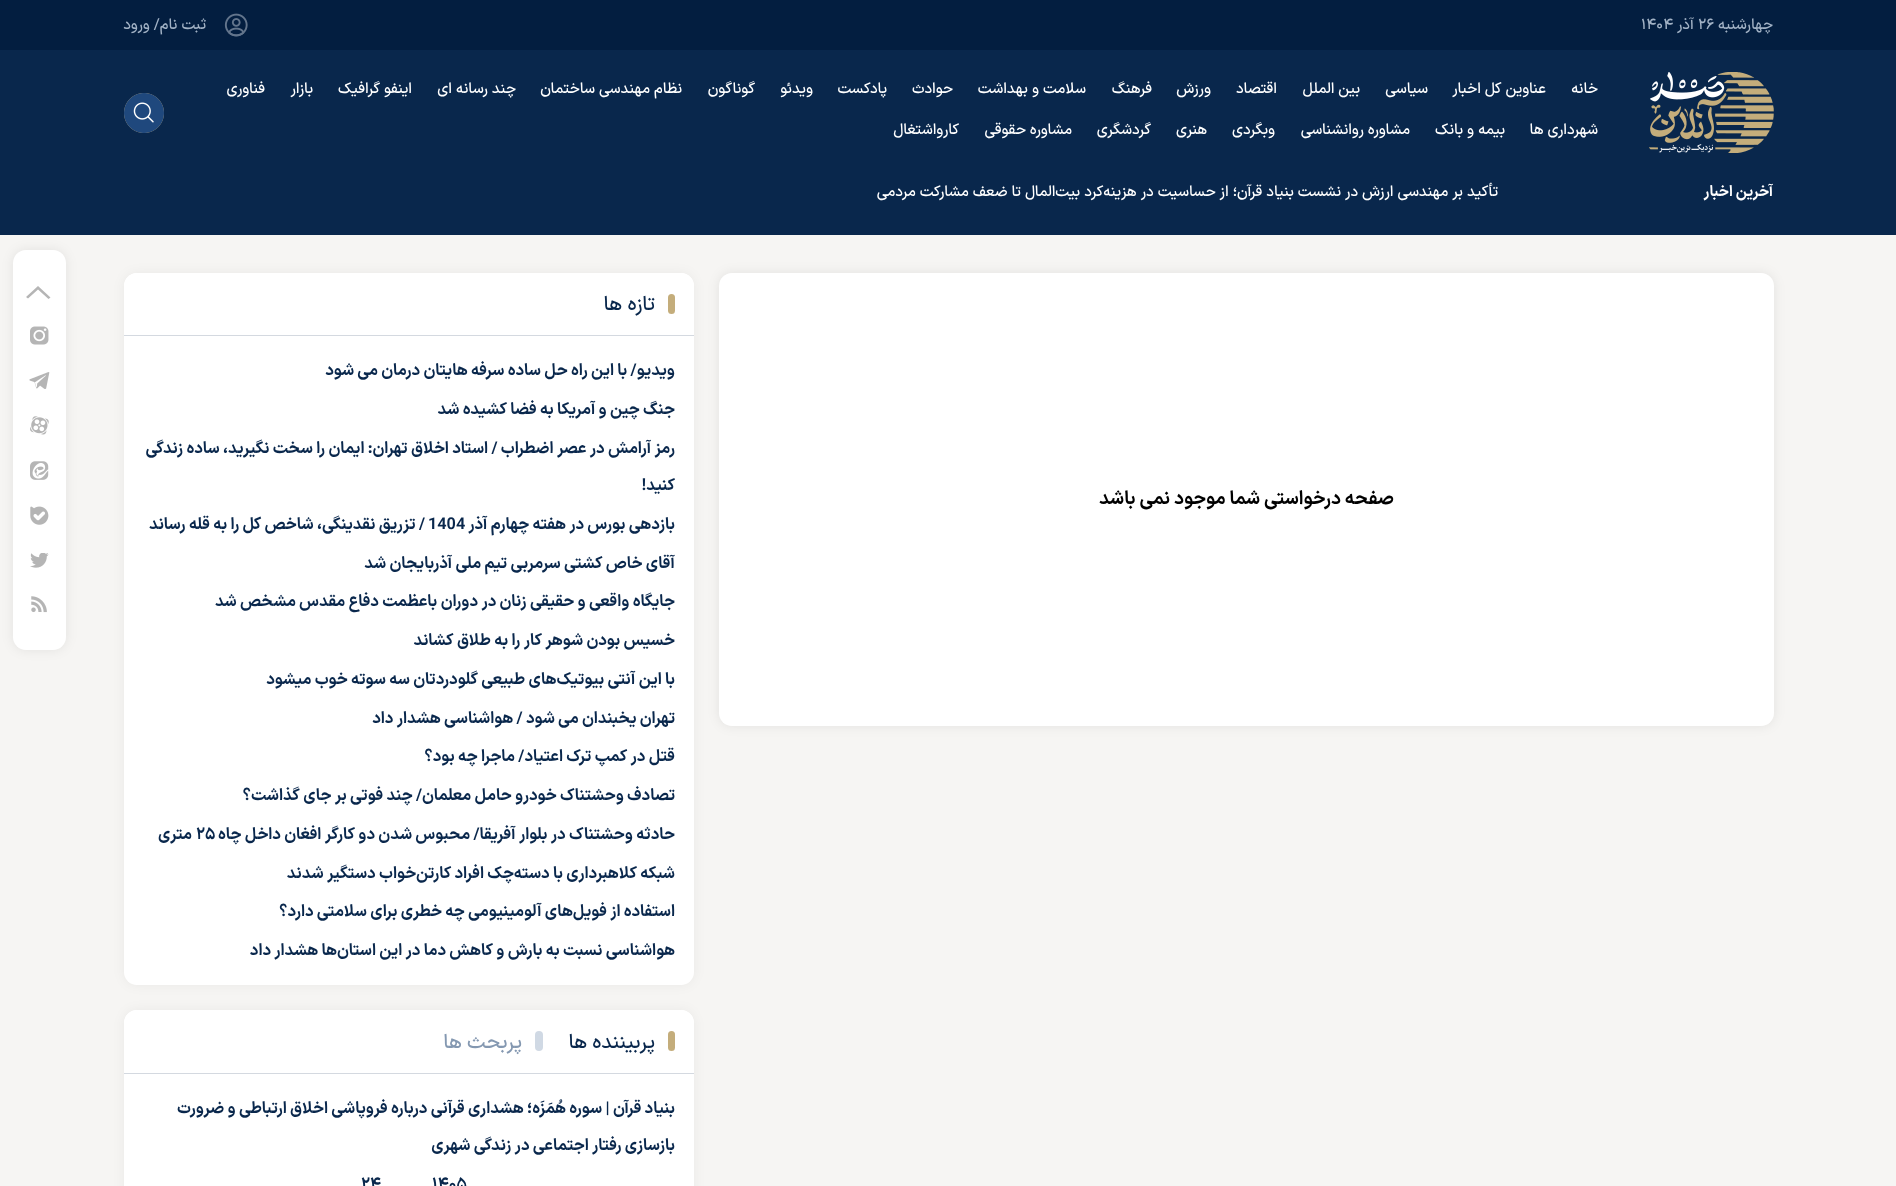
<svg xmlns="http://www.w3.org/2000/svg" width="1896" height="1186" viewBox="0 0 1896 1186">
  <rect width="100%" height="100%" fill="#f6f5f3"/>
  <path d="M0 0h1896v50H0z" fill="#031e40"/>
  <image x="224" y="13" width="24" height="24" href="img/1.png"/>
  <path d="M0 50h1896v185H0z" fill="#09274c"/>
  <image x="1649" y="72" width="125" height="81" href="img/2.png"/>
  <image x="124" y="93" width="40" height="40" href="img/3.png"/>
  <rect x="719" y="273" width="1055" height="453" rx="13" fill="#00000014" filter="blur(6px)"/>
  <rect x="719" y="273" width="1055" height="453" rx="13" fill="#fff"/>
  <rect x="124" y="273" width="570" height="712" rx="13" fill="#0000000d" filter="blur(6px)"/>
  <rect x="124" y="273" width="570" height="712" rx="13" fill="#fff"/>
  <path d="M137 273H681C688 273 694 279 694 286V335H124V286C124 279 130 273 137 273Z" fill="#fff"/>
  <rect x="668" y="294" width="7" height="20" rx="3.5" fill="#c4ad7b"/>
  <path d="M124 335h570v1H124z" fill="#d4d9e0"/>
  <rect x="124" y="1010" width="570" height="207" rx="13" fill="#0000000d" filter="blur(6px)"/>
  <rect x="124" y="1010" width="570" height="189" rx="13" fill="#fff"/>
  <path d="M137 1010H681C688 1010 694 1016 694 1023V1073H124V1023C124 1016 130 1010 137 1010Z" fill="#fff"/>
  <rect x="668" y="1031" width="7" height="20" rx="3.5" fill="#c4ad7b"/>
  <rect x="535" y="1031" width="8" height="20" rx="4" fill="#d0d9e4"/>
  <path d="M124 1073h570v1H124z" fill="#d4d9e0"/>
  <rect x="13" y="250" width="53" height="400" rx="13" fill="#00000014" filter="blur(6px)"/>
  <rect x="13" y="250" width="53" height="400" rx="13" fill="#fff"/>
  <path d="M38 289.5L28 298.5L26 297L38 286L50.5 297.5L48.5 299Z" fill="#b5b5b5"/>
  <image x="30" y="326" width="19" height="19" href="img/4.png"/>
  <image x="29" y="372" width="21" height="17" href="img/5.png"/>
  <image x="30" y="416" width="19" height="19" href="img/6.png"/>
  <image x="30" y="461" width="19" height="19" href="img/7.png"/>
  <image x="30" y="506" width="19" height="19" href="img/8.png"/>
  <image x="30" y="553" width="19" height="15" href="img/9.png"/>
  <image x="31" y="596" width="16" height="17" href="img/10.png"/>
  <text x="1773" y="29" font-family="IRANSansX" font-size="15" font-weight="500" direction="rtl" fill="#a2b2c5">چهارشنبه</text>
  <text x="1698" y="29" font-family="IRANSansX" font-size="15" font-weight="500" fill="#a2b2c5">۲۶</text>
  <text x="1694" y="29" font-family="IRANSansX" font-size="15" font-weight="500" direction="rtl" fill="#a2b2c5">آذر</text>
  <text x="1641" y="29" font-family="IRANSansX" font-size="15" font-weight="500" fill="#a2b2c5">۱۴۰۴</text>
  <text x="206" y="29" font-family="IRANSansX" font-size="15" font-weight="500" direction="rtl" fill="#a2b2c5">ثبت نام/ ورود</text>
  <g font-family="IRANSansX" font-size="15" font-weight="500" direction="rtl" fill="#fff">
    <text x="1598" y="93">خانه</text>
    <text x="1546" y="93">عناوین کل اخبار</text>
    <text x="1428" y="93">سیاسی</text>
    <text x="1360" y="93">بین الملل</text>
    <text x="1277" y="93">اقتصاد</text>
    <text x="1211" y="93">ورزش</text>
    <text x="1152" y="93">فرهنگ</text>
    <text x="1086" y="93">سلامت و بهداشت</text>
    <text x="953" y="93">حوادث</text>
    <text x="887" y="93">پادکست</text>
    <text x="813" y="93">ویدئو</text>
    <text x="755" y="93">گوناگون</text>
    <text x="682" y="93">نظام مهندسی ساختمان</text>
    <text x="516" y="93">چند رسانه ای</text>
    <text x="412" y="93">اینفو گرافیک</text>
    <text x="313" y="93">بازار</text>
    <text x="265" y="93">فناوری</text>
    <text x="1598" y="134">شهرداری ها</text>
    <text x="1505" y="134">بیمه و بانک</text>
    <text x="1410" y="134">مشاوره روانشناسی</text>
    <text x="1275" y="134">وبگردی</text>
    <text x="1207" y="134">هنری</text>
    <text x="1151" y="134">گردشگری</text>
    <text x="1072" y="134">مشاوره حقوقی</text>
    <text x="959" y="134">کارواشتغال</text>
  </g>
  <text x="1773" y="196" font-family="IRANSansX" font-size="15" font-weight="bold" direction="rtl" fill="#fff">آخرین اخبار</text>
  <text x="1498" y="196" font-family="IRANSansX" font-size="15" font-weight="500" direction="rtl" fill="#fff">تأکید بر مهندسی ارزش در نشست بنیاد قرآن؛ از حساسیت در هزینه‌کرد بیت‌المال تا ضعف مشارکت مردمی</text>
  <text x="1394" y="504" font-family="IRANSansX" font-size="18.75" font-weight="bold" direction="rtl" fill="#000">صفحه درخواستی شما موجود نمی باشد</text>
  <text x="655" y="310" font-family="IRANSansX" font-size="20" font-weight="500" direction="rtl" fill="#09274c">تازه ها</text>
  <g font-family="IRANSansX" font-size="16.25" font-weight="bold" direction="rtl" fill="#09274c">
    <text x="675" y="375">ویدیو/ با این راه حل ساده سرفه هایتان درمان می شود</text>
    <text x="675" y="414">جنگ چین و آمریکا به فضا کشیده شد</text>
    <text x="675" y="453">رمز آرامش در عصر اضطراب / استاد اخلاق تهران: ایمان را سخت نگیرید، ساده زندگی</text>
    <text x="675" y="490">کنید!</text>
    <text x="675" y="529">بازدهی بورس در هفته چهارم آذر</text>
  </g>
  <text x="428" y="529" font-family="IRANSansX" font-size="16.25" font-weight="bold" fill="#09274c">1404</text>
  <g font-family="IRANSansX" font-size="16.25" font-weight="bold" direction="rtl" fill="#09274c">
    <text x="425" y="529">/ تزریق نقدینگی، شاخص کل را به قله رساند</text>
    <text x="675" y="568">آقای خاص کشتی سرمربی تیم ملی آذربایجان شد</text>
    <text x="675" y="606">جایگاه واقعی و حقیقی زنان در دوران باعظمت دفاع مقدس مشخص شد</text>
    <text x="675" y="645">خسیس بودن شوهر کار را به طلاق کشاند</text>
    <text x="675" y="684">با این آنتی بیوتیک‌های طبیعی گلودردتان سه سوته خوب میشود</text>
    <text x="675" y="723">تهران یخبندان می شود / هواشناسی هشدار داد</text>
    <text x="675" y="761">قتل در کمپ ترک اعتیاد/ ماجرا چه بود؟</text>
    <text x="675" y="800">تصادف وحشتناک خودرو حامل معلمان/ چند فوتی بر جای گذاشت؟</text>
    <text x="675" y="839">حادثه وحشتناک در بلوار آفریقا/ محبوس شدن دو کارگر افغان داخل چاه</text>
  </g>
  <text x="196" y="839" font-family="IRANSansX" font-size="16.25" font-weight="bold" fill="#09274c">۲۵</text>
  <g font-family="IRANSansX" font-size="16.25" font-weight="bold" direction="rtl" fill="#09274c">
    <text x="192" y="839">متری</text>
    <text x="675" y="878">شبکه کلاهبرداری با دسته‌چک افراد کارتن‌خواب دستگیر شدند</text>
    <text x="675" y="916">استفاده از فویل‌های آلومینیومی چه خطری برای سلامتی دارد؟</text>
    <text x="675" y="955">هواشناسی نسبت به بارش و کاهش دما در این استان‌ها هشدار داد</text>
  </g>
  <text x="655" y="1048" font-family="IRANSansX" font-size="20" font-weight="500" direction="rtl" fill="#09274c">پربیننده ها</text>
  <text x="522" y="1048" font-family="IRANSansX" font-size="20" font-weight="500" direction="rtl" fill="#8498b1">پربحث ها</text>
  <g font-family="IRANSansX" font-size="16.25" font-weight="bold" direction="rtl" fill="#09274c">
    <text x="675" y="1113">بنیاد قرآن | سوره هُمَزَه؛ هشداری قرآنی درباره فروپاشی اخلاق ارتباطی و ضرورت</text>
    <text x="675" y="1150">بازسازی رفتار اجتماعی در زندگی شهری</text>
  </g>
  <g font-family="IRANSansX" font-size="16.25" font-weight="bold" fill="#09274c">
    <text x="432" y="1189">۱۴۰۵</text>
    <text x="361" y="1189">۲۴</text>
  </g>
</svg>
